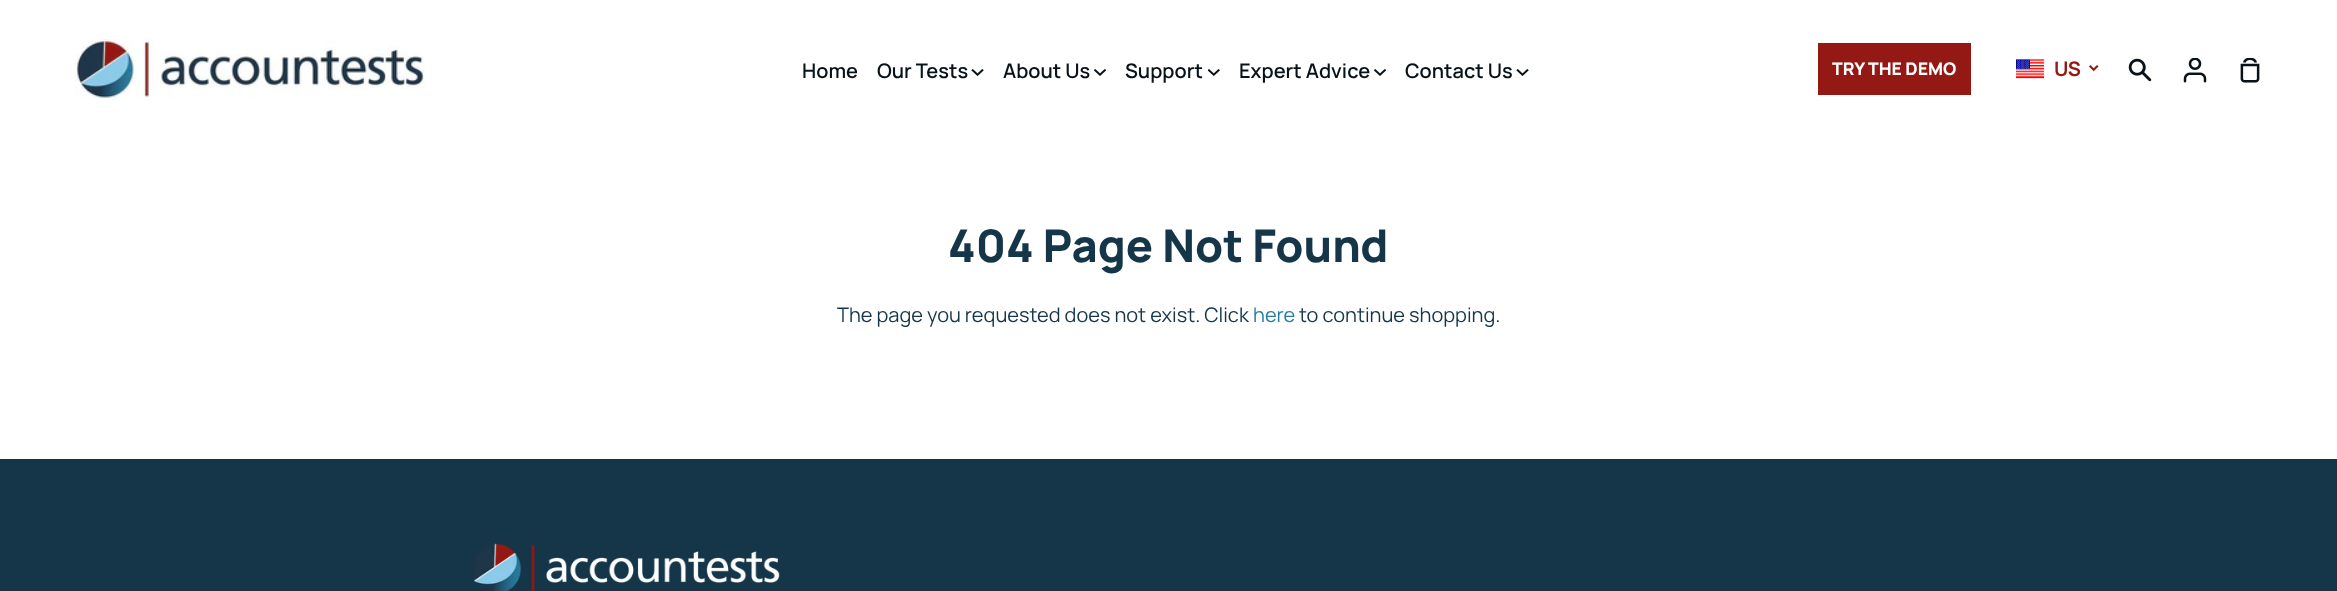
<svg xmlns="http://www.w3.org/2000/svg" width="2337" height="591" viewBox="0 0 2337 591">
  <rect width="100%" height="100%" fill="#fff"/>
  <image x="75" y="39" width="350" height="61" href="img/1.png"/>
  <image x="971" y="69" width="13" height="7" href="img/2.png"/>
  <image x="1094" y="69" width="12" height="7" href="img/3.png"/>
  <image x="1208" y="69" width="12" height="7" href="img/4.png"/>
  <image x="1374" y="69" width="12" height="7" href="img/3.png"/>
  <image x="1516" y="69" width="13" height="7" href="img/2.png"/>
  <path d="M1818 43h153v52H1818z" fill="#941914"/>
  <image x="2016" y="59" width="29" height="20" href="img/5.png"/>
  <image x="2128" y="58" width="24" height="24" href="img/6.png"/>
  <image x="2183" y="58" width="24" height="25" href="img/7.png"/>
  <image x="2240" y="58" width="20" height="25" href="img/8.png"/>
  <path d="M0 459h2337v132H0z" fill="#153649"/>
  <image x="471" y="543" width="309" height="48" href="img/9.png"/>
  <g font-family="Manrope" font-size="20" font-weight="600" fill="#071319">
    <text x="802" y="78">Home</text>
    <text x="877" y="78">Our Tests</text>
    <text x="1003" y="78">About Us</text>
    <text x="1125" y="78">Support</text>
    <text x="1239" y="78">Expert Advice</text>
    <text x="1405" y="78">Contact Us</text>
  </g>
  <text x="1832" y="75" font-family="Manrope" font-size="17.5" font-weight="800" fill="#fff">TRY THE DEMO</text>
  <g font-family="Manrope" font-size="20" font-weight="bold" fill="#941914">
    <text x="2054" y="76">US</text>
    <text x="2100" y="74" transform="rotate(-90 2100 74)">&lt;</text>
  </g>
  <text x="948" y="262" font-family="Manrope" font-size="45" font-weight="800" fill="#153649">404 Page Not Found</text>
  <text x="837" y="322" font-family="Manrope" font-size="20" fill="#153649">The page you requested does not exist. Click</text>
  <text x="1253" y="322" font-family="Manrope" font-size="20" fill="#267da1">here</text>
  <text x="1299" y="322" font-family="Manrope" font-size="20" fill="#153649">to continue shopping.</text>
</svg>
